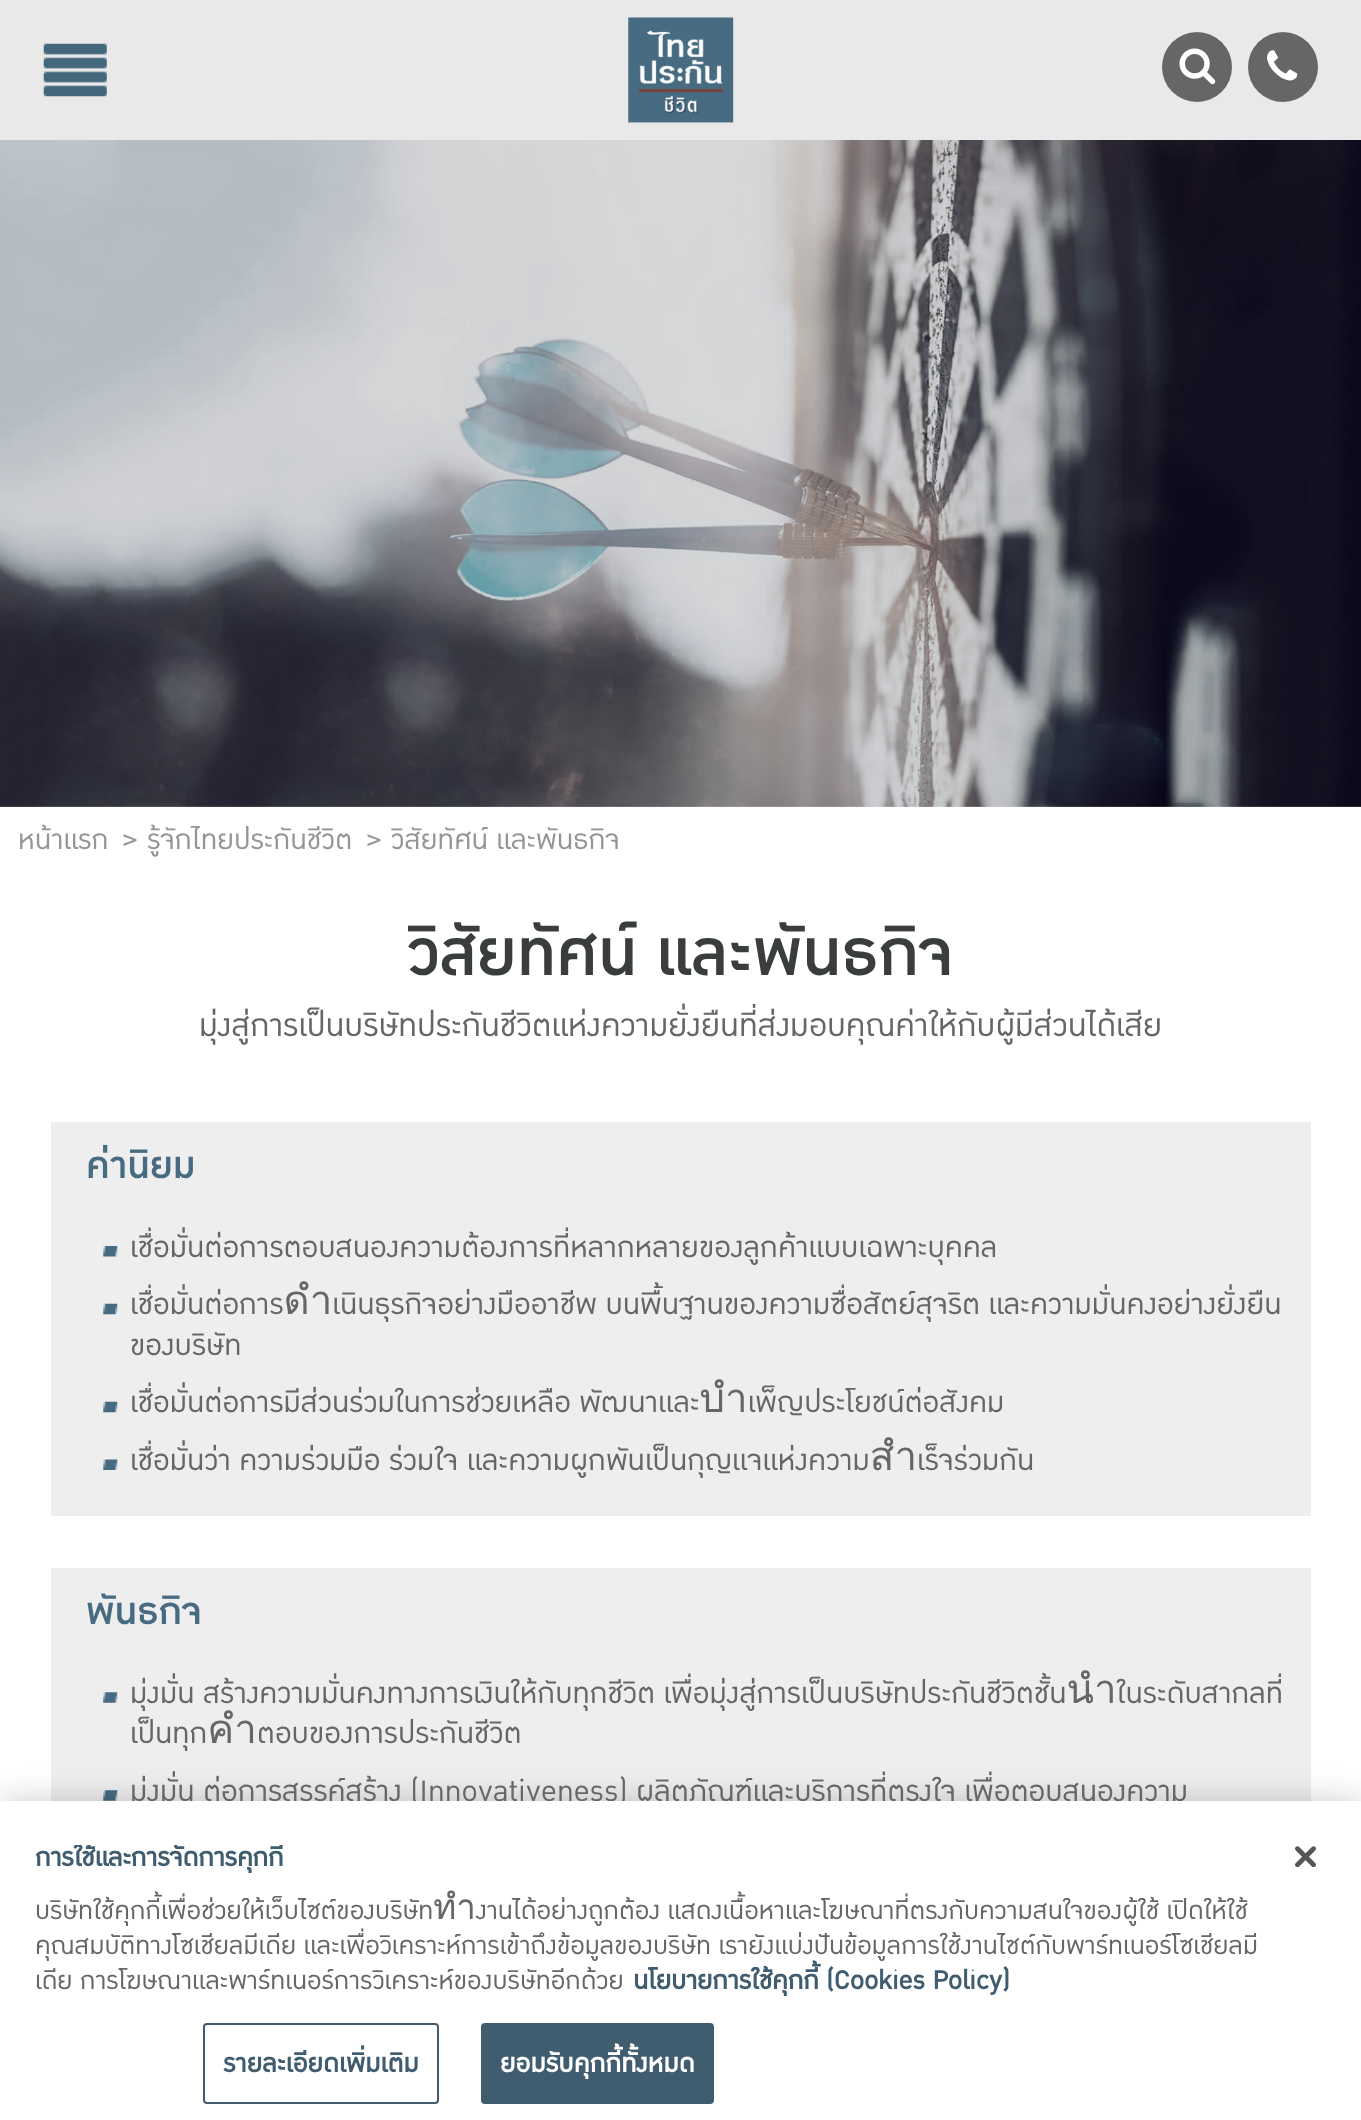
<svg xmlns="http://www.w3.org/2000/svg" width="1361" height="2120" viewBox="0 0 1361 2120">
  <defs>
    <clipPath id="clip1"><path d="M35 1845h1223v157H35z"/></clipPath>
  </defs>
  <rect width="100%" height="100%" fill="#fff"/>
  <path d="M0 0h1361v140H0z" fill="#e9e9e9"/>
  <image x="43" y="43" width="64" height="54" href="img/1.png"/>
  <image x="628" y="17" width="106" height="106" href="img/2.png"/>
  <circle cx="1197" cy="67" r="35" fill="#666"/>
  <image x="1179" y="48" width="37" height="37" href="img/3.png"/>
  <circle cx="1283" cy="67" r="35" fill="#666"/>
  <image x="1267" y="50" width="31" height="31" href="img/4.png"/>
  <image x="0" y="140" width="1361" height="667" href="img/5.png"/>
  <path d="M51 1122h1260v394H51z" fill="#eee"/>
  <image x="103" y="1246" width="15" height="11" href="img/6.png"/>
  <image x="103" y="1303" width="15" height="12" href="img/7.png"/>
  <image x="103" y="1401" width="15" height="12" href="img/7.png"/>
  <image x="103" y="1459" width="15" height="11" href="img/8.png"/>
  <path d="M51 1568h1260v233H51z" fill="#eee"/>
  <image x="103" y="1692" width="15" height="11" href="img/9.png"/>
  <image x="103" y="1790" width="15" height="11" href="img/10.png"/>
  <path d="M0 1801h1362v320H0z" fill="#00000033" filter="blur(16px)"/>
  <g font-family="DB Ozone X" font-size="38.5" fill="#959595">
    <text x="18" y="849">หน้าแรก</text>
    <text x="122" y="849">&gt;</text>
    <text x="147" y="849">รู้จักไทยประกันชีวิต</text>
    <text x="366" y="849">&gt;</text>
    <text x="391" y="849">วิสัยทัศน์ และพันธกิจ</text>
  </g>
  <text x="408" y="975" font-family="DB Ozone X" font-size="91" font-weight="500" fill="#3a3d3d">วิสัยทัศน์ และพันธกิจ</text>
  <text x="199" y="1036" font-family="DB Ozone X" font-size="43.75" fill="#666">มุ่งสู่การเป็นบริษัทประกันชีวิตแห่งความยั่งยืนที่ส่งมอบคุณค่าให้กับผู้มีส่วนได้เสีย</text>
  <text x="86" y="1178" font-family="DB Ozone X" font-size="52.5" font-weight="500" fill="#476b81">ค่านิยม</text>
  <g font-family="DB Ozone X" font-size="40.25" fill="#666">
    <text x="130" y="1257">เชื่อมั่นต่อการตอบสนองความต้องการที่หลากหลายของลูกค้าแบบเฉพาะบุคคล</text>
    <text x="130" y="1314">เชื่อมั่นต่อการดำเนินธุรกิจอย่างมืออาชีพ บนพื้นฐานของความซื่อสัตย์สุจริต และความมั่นคงอย่างยั่งยืน</text>
    <text x="130" y="1355">ของบริษัท</text>
    <text x="130" y="1412">เชื่อมั่นต่อการมีส่วนร่วมในการช่วยเหลือ พัฒนาและบำเพ็ญประโยชน์ต่อสังคม</text>
    <text x="130" y="1470">เชื่อมั่นว่า ความร่วมมือ ร่วมใจ และความผูกพันเป็นกุญแจแห่งความสำเร็จร่วมกัน</text>
  </g>
  <text x="86" y="1624" font-family="DB Ozone X" font-size="52.5" font-weight="500" fill="#476b81">พันธกิจ</text>
  <g font-family="DB Ozone X" font-size="40.25" fill="#666">
    <text x="130" y="1703">มุ่งมั่น สร้างความมั่นคงทางการเงินให้กับทุกชีวิต เพื่อมุ่งสู่การเป็นบริษัทประกันชีวิตชั้นนำในระดับสากลที่</text>
    <text x="130" y="1743">เป็นทุกคำตอบของการประกันชีวิต</text>
    <text x="130" y="1801">มุ่งมั่น ต่อการสรรค์สร้าง (Innovativeness) ผลิตภัณฑ์และบริการที่ตรงใจ เพื่อตอบสนองความ</text>
  </g>
  <path d="M0 1801h1361v319H0z" fill="#fff"/>
  <g clip-path="url(#clip1)">
    <text x="35" y="1866" font-family="DB Ozone X" font-size="35" font-weight="bold" fill="#405d70">การใช้และการจัดการคุกกี้</text>
  </g>
  <text x="35" y="1919" font-family="DB Ozone X" font-size="35" fill="#666">บริษัทใช้คุกกี้เพื่อช่วยให้เว็บไซต์ของบริษัททำงานได้อย่างถูกต้อง แสดงเนื้อหาและโฆษณาที่ตรงกับความสนใจของผู้ใช้ เปิดให้ใช้</text>
  <g clip-path="url(#clip1)">
    <g font-family="DB Ozone X" font-size="35" fill="#666">
      <text x="35" y="1954">คุณสมบัติทางโซเชียลมีเดีย และเพื่อวิเคราะห์การเข้าถึงข้อมูลของบริษัท เรายังแบ่งปันข้อมูลการใช้งานไซต์กับพาร์ทเนอร์โซเชียลมี</text>
      <text x="35" y="1989">เดีย การโฆษณาและพาร์ทเนอร์การวิเคราะห์ของบริษัทอีกด้วย</text>
    </g>
  </g>
  <text x="633" y="1989" font-family="DB Ozone X" font-size="35" font-weight="bold" fill="#405d70">นโยบายการใช้คุกกี้ (Cookies Policy)</text>
  <rect x="204" y="2024" width="234" height="79" rx="3" fill="none" stroke="#405d70" stroke-width="2"/>
  <text x="223" y="2072" font-family="DB Ozone X" font-size="35" font-weight="bold" letter-spacing="0.3" fill="#405d70">รายละเอียดเพิ่มเติม</text>
  <rect x="482" y="2024" width="231" height="79" rx="3" fill="#405d70" stroke="#405d70" stroke-width="2"/>
  <text x="500" y="2072" font-family="DB Ozone X" font-size="35" font-weight="bold" letter-spacing="0.3" fill="#fff">ยอมรับคุกกี้ทั้งหมด</text>
  <image x="1295" y="1846" width="21" height="21" href="img/11.png"/>
</svg>
